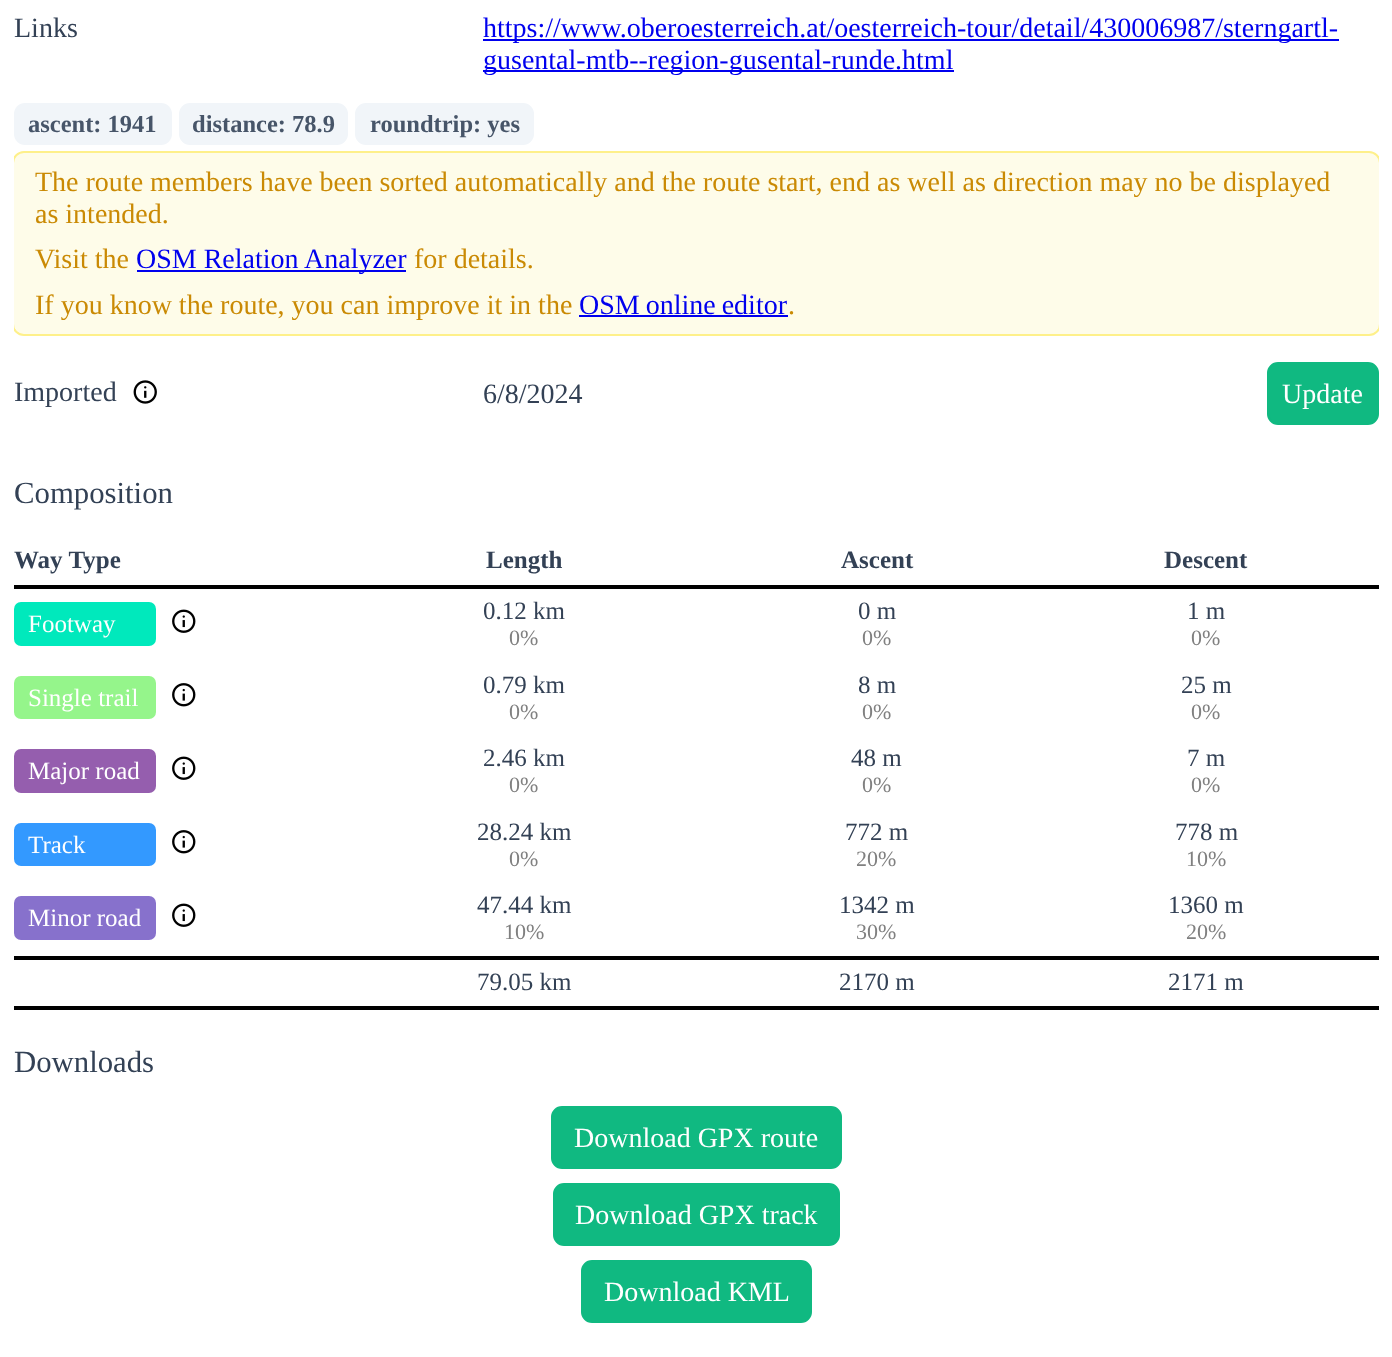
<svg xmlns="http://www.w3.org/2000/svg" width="1392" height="1357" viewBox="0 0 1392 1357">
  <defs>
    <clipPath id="clip1"><path d="M14 0h1365v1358H14z"/></clipPath>
  </defs>
  <rect width="100%" height="100%" fill="#fff"/>
  <path d="M483 39h856v2H483z" fill="#00e"/>
  <path d="M483 70h471v2H483z" fill="#00e"/>
  <rect x="14" y="103" width="158" height="42" rx="11" fill="#f1f5f9"/>
  <rect x="179" y="103" width="169" height="42" rx="11" fill="#f1f5f9"/>
  <rect x="355" y="103" width="179" height="42" rx="11" fill="#f1f5f9"/>
  <rect x="14" y="152" width="1365" height="182" rx="11" fill="#fefce9"/>
  <path d="M137 270h269v2H137z" fill="#00e"/>
  <path d="M579 315h209v2H579z" fill="#00e"/>
  <g clip-path="url(#clip1)">
    <rect x="13" y="152" width="1367" height="183" rx="11" fill="none" stroke="#fef08a" stroke-width="2"/>
  </g>
  <image x="133" y="380" width="24" height="24" href="img/1.png"/>
  <rect x="1268" y="363" width="110" height="61" rx="10" fill="#10b981" stroke="#10b981" stroke-width="2"/>
  <path d="M14 585h1365v4H14z" fill="#000"/>
  <rect x="14" y="602" width="142" height="44" rx="7" fill="#00e9bc"/>
  <image x="172" y="609" width="24" height="24" href="img/2.png"/>
  <rect x="14" y="676" width="142" height="43" rx="7" fill="#95f58b"/>
  <image x="172" y="683" width="24" height="24" href="img/3.png"/>
  <rect x="14" y="749" width="142" height="44" rx="7" fill="#955eae"/>
  <image x="172" y="756" width="24" height="24" href="img/2.png"/>
  <rect x="14" y="823" width="142" height="43" rx="7" fill="#39f"/>
  <image x="172" y="830" width="24" height="24" href="img/3.png"/>
  <rect x="14" y="896" width="142" height="44" rx="7" fill="#8771cc"/>
  <image x="172" y="903" width="24" height="24" href="img/2.png"/>
  <path d="M14 956h1365v4H14z" fill="#000"/>
  <path d="M14 1006h1365v4H14z" fill="#000"/>
  <rect x="552" y="1107" width="289" height="61" rx="10" fill="#10b981" stroke="#10b981" stroke-width="2"/>
  <rect x="554" y="1184" width="285" height="61" rx="10" fill="#10b981" stroke="#10b981" stroke-width="2"/>
  <rect x="582" y="1261" width="229" height="61" rx="10" fill="#10b981" stroke="#10b981" stroke-width="2"/>
  <text x="14" y="37" font-family="Liberation Serif" font-size="28" fill="#334155">Links</text>
  <g font-family="Liberation Serif" font-size="28" fill="#00e">
    <text x="483" y="37">https://www.oberoesterreich.at/oesterreich-tour/detail/430006987/sterngartl-</text>
    <text x="483" y="69">gusental-mtb--region-gusental-runde.html</text>
  </g>
  <g font-family="Liberation Serif" font-size="24.5" font-weight="bold" fill="#475569">
    <text x="28" y="132">ascent: 1941</text>
    <text x="192" y="132">distance: 78.9</text>
    <text x="370" y="132">roundtrip: yes</text>
  </g>
  <g font-family="Liberation Serif" font-size="28" fill="#ca8a04">
    <text x="35" y="191">The route members have been sorted automatically and the route start, end as well as direction may no be displayed</text>
    <text x="35" y="223">as intended.</text>
    <text x="35" y="268">Visit the</text>
  </g>
  <text x="136" y="268" font-family="Liberation Serif" font-size="28" fill="#00e">OSM Relation Analyzer</text>
  <g font-family="Liberation Serif" font-size="28" fill="#ca8a04">
    <text x="414" y="268">for details.</text>
    <text x="35" y="314">If you know the route, you can improve it in the</text>
  </g>
  <text x="579" y="314" word-spacing="-1" font-family="Liberation Serif" font-size="28" fill="#00e">OSM online editor</text>
  <text x="788" y="314" font-family="Liberation Serif" font-size="28" fill="#ca8a04">.</text>
  <g font-family="Liberation Serif" font-size="28" fill="#334155">
    <text x="14" y="401">Imported</text>
    <text x="483" y="403">6/8/2024</text>
  </g>
  <text x="1282" y="403" font-family="Liberation Serif" font-size="28" fill="#fff">Update</text>
  <text x="14" y="503" font-family="Liberation Serif" font-size="30.75" fill="#334155">Composition</text>
  <g font-family="Liberation Serif" font-size="25" font-weight="bold" fill="#334155">
    <text x="14" y="568">Way Type</text>
    <text x="486" y="568">Length</text>
    <text x="841" y="568">Ascent</text>
    <text x="1164" y="568">Descent</text>
  </g>
  <text x="28" y="632" font-family="Liberation Serif" font-size="25" fill="#fff">Footway</text>
  <text x="483" y="619" font-family="Liberation Serif" font-size="25" fill="#334155">0.12 km</text>
  <text x="509" y="645" font-family="Liberation Serif" font-size="22" fill="#808080">0%</text>
  <text x="858" y="619" font-family="Liberation Serif" font-size="25" fill="#334155">0 m</text>
  <text x="862" y="645" font-family="Liberation Serif" font-size="22" fill="#808080">0%</text>
  <text x="1187" y="619" font-family="Liberation Serif" font-size="25" fill="#334155">1 m</text>
  <text x="1191" y="645" font-family="Liberation Serif" font-size="22" fill="#808080">0%</text>
  <text x="28" y="706" font-family="Liberation Serif" font-size="25" fill="#fff">Single trail</text>
  <text x="483" y="693" font-family="Liberation Serif" font-size="25" fill="#334155">0.79 km</text>
  <text x="509" y="719" font-family="Liberation Serif" font-size="22" fill="#808080">0%</text>
  <text x="858" y="693" font-family="Liberation Serif" font-size="25" fill="#334155">8 m</text>
  <text x="862" y="719" font-family="Liberation Serif" font-size="22" fill="#808080">0%</text>
  <text x="1181" y="693" font-family="Liberation Serif" font-size="25" fill="#334155">25 m</text>
  <text x="1191" y="719" font-family="Liberation Serif" font-size="22" fill="#808080">0%</text>
  <text x="28" y="779" font-family="Liberation Serif" font-size="25" fill="#fff">Major road</text>
  <text x="483" y="766" font-family="Liberation Serif" font-size="25" fill="#334155">2.46 km</text>
  <text x="509" y="792" font-family="Liberation Serif" font-size="22" fill="#808080">0%</text>
  <text x="851" y="766" font-family="Liberation Serif" font-size="25" fill="#334155">48 m</text>
  <text x="862" y="792" font-family="Liberation Serif" font-size="22" fill="#808080">0%</text>
  <text x="1187" y="766" font-family="Liberation Serif" font-size="25" fill="#334155">7 m</text>
  <text x="1191" y="792" font-family="Liberation Serif" font-size="22" fill="#808080">0%</text>
  <text x="28" y="853" font-family="Liberation Serif" font-size="25" fill="#fff">Track</text>
  <text x="477" y="840" font-family="Liberation Serif" font-size="25" fill="#334155">28.24 km</text>
  <text x="509" y="866" font-family="Liberation Serif" font-size="22" fill="#808080">0%</text>
  <text x="845" y="840" font-family="Liberation Serif" font-size="25" fill="#334155">772 m</text>
  <text x="856" y="866" font-family="Liberation Serif" font-size="22" fill="#808080">20%</text>
  <text x="1175" y="840" font-family="Liberation Serif" font-size="25" fill="#334155">778 m</text>
  <text x="1186" y="866" font-family="Liberation Serif" font-size="22" fill="#808080">10%</text>
  <text x="28" y="926" font-family="Liberation Serif" font-size="25" fill="#fff">Minor road</text>
  <text x="477" y="913" font-family="Liberation Serif" font-size="25" fill="#334155">47.44 km</text>
  <text x="504" y="939" font-family="Liberation Serif" font-size="22" fill="#808080">10%</text>
  <text x="839" y="913" font-family="Liberation Serif" font-size="25" fill="#334155">1342 m</text>
  <text x="856" y="939" font-family="Liberation Serif" font-size="22" fill="#808080">30%</text>
  <text x="1168" y="913" font-family="Liberation Serif" font-size="25" fill="#334155">1360 m</text>
  <text x="1186" y="939" font-family="Liberation Serif" font-size="22" fill="#808080">20%</text>
  <g font-family="Liberation Serif" font-size="25" fill="#334155">
    <text x="477" y="990">79.05 km</text>
    <text x="839" y="990">2170 m</text>
    <text x="1168" y="990">2171 m</text>
  </g>
  <text x="14" y="1072" font-family="Liberation Serif" font-size="30.75" fill="#334155">Downloads</text>
  <g font-family="Liberation Serif" font-size="28" fill="#fff">
    <text x="574" y="1147">Download GPX route</text>
    <text x="575" y="1224">Download GPX track</text>
    <text x="604" y="1301">Download KML</text>
  </g>
</svg>
